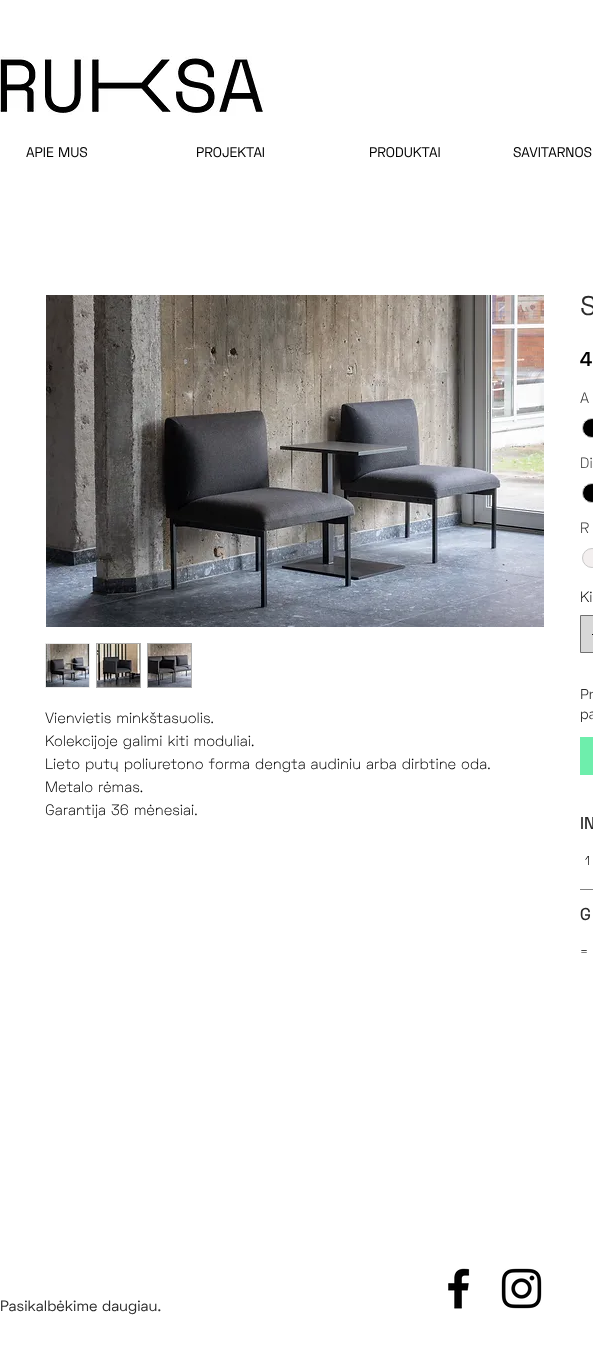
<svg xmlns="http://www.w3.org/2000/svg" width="593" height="1362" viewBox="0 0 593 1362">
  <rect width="100%" height="100%" fill="#fff"/>
  <image x="0" y="52" width="279" height="70" href="img/1.png"/>
  <image x="46" y="295" width="498" height="332" href="img/2.png"/>
  <path d="M45.5 643.5h44v44H45.5z" fill="none" stroke="#e8e8e8"/>
  <image x="46" y="644" width="43" height="43" href="img/3.png"/>
  <path d="M96 643h45v45H96z" fill="#adadad"/>
  <image x="97" y="644" width="43" height="43" href="img/4.png"/>
  <path d="M147 643h45v45H147z" fill="#adadad"/>
  <image x="148" y="644" width="43" height="43" href="img/5.png"/>
  <circle cx="592" cy="428" r="9.5" fill="#000" stroke="#c9c9c9"/>
  <circle cx="592" cy="493" r="9.5" fill="#000" stroke="#c9c9c9"/>
  <circle cx="592" cy="558" r="9.5" fill="#f3efef" stroke="#c9c9c9"/>
  <path d="M580.5 615.5h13v37H580.5z" fill="#d8d8d8" stroke="#707070"/>
  <path d="M592 634h1v1H592z" fill="#000"/>
  <path d="M580 737h13v38H580z" fill="#6eeeac"/>
  <path d="M580 889h13v1H580z" fill="#828282"/>
  <image x="448" y="1268" width="22" height="41" href="img/6.png"/>
  <image x="501" y="1268" width="41" height="41" href="img/7.png"/>
  <g font-family="Space Grotesk" font-size="14" fill="#000">
    <text x="26" y="157">APIE MUS</text>
    <text x="196" y="157">PROJEKTAI</text>
    <text x="369" y="157">PRODUKTAI</text>
    <text x="513" y="157">SAVITARNOS</text>
  </g>
  <g font-family="Space Grotesk" font-size="15" font-weight="300" fill="#000">
    <text x="45" y="723">Vienvietis minkštasuolis.</text>
    <text x="45" y="746">Kolekcijoje galimi kiti moduliai.</text>
    <text x="45" y="769">Lieto putų poliuretono forma dengta audiniu arba dirbtine oda.</text>
    <text x="45" y="792">Metalo rėmas.</text>
    <text x="45" y="815">Garantija 36 mėnesiai.</text>
  </g>
  <text x="580" y="315" font-family="Space Grotesk" font-size="26" font-weight="bold" fill="#2b2b2b">S</text>
  <text x="580" y="366" font-family="Space Grotesk" font-size="20" font-weight="600" fill="#000">4</text>
  <g font-family="Space Grotesk" font-size="15" font-weight="300" fill="#2b2b2b">
    <text x="580" y="403">A</text>
    <text x="580" y="468">Di</text>
    <text x="580" y="533">R</text>
  </g>
  <text x="580" y="602" font-family="Space Grotesk" font-size="15" font-weight="300" fill="#000">Ki</text>
  <g font-family="Raleway" font-size="14" fill="#2b2b2b">
    <text x="580" y="699">Pr</text>
    <text x="580" y="719">pa</text>
  </g>
  <text x="580" y="829" font-family="Space Grotesk" font-size="17" font-weight="500" fill="#2b2b2b">IN</text>
  <text x="585" y="865" font-family="Space Grotesk" font-size="13" font-weight="300" fill="#000">1</text>
  <text x="580" y="920" font-family="Space Grotesk" font-size="17" font-weight="500" fill="#2b2b2b">G</text>
  <text x="580" y="956" font-family="Space Grotesk" font-size="13" font-weight="300" fill="#000">=</text>
  <text x="0" y="1311" font-family="Space Grotesk" font-size="15" fill="#2b2b2b">Pasikalbėkime daugiau.</text>
</svg>
